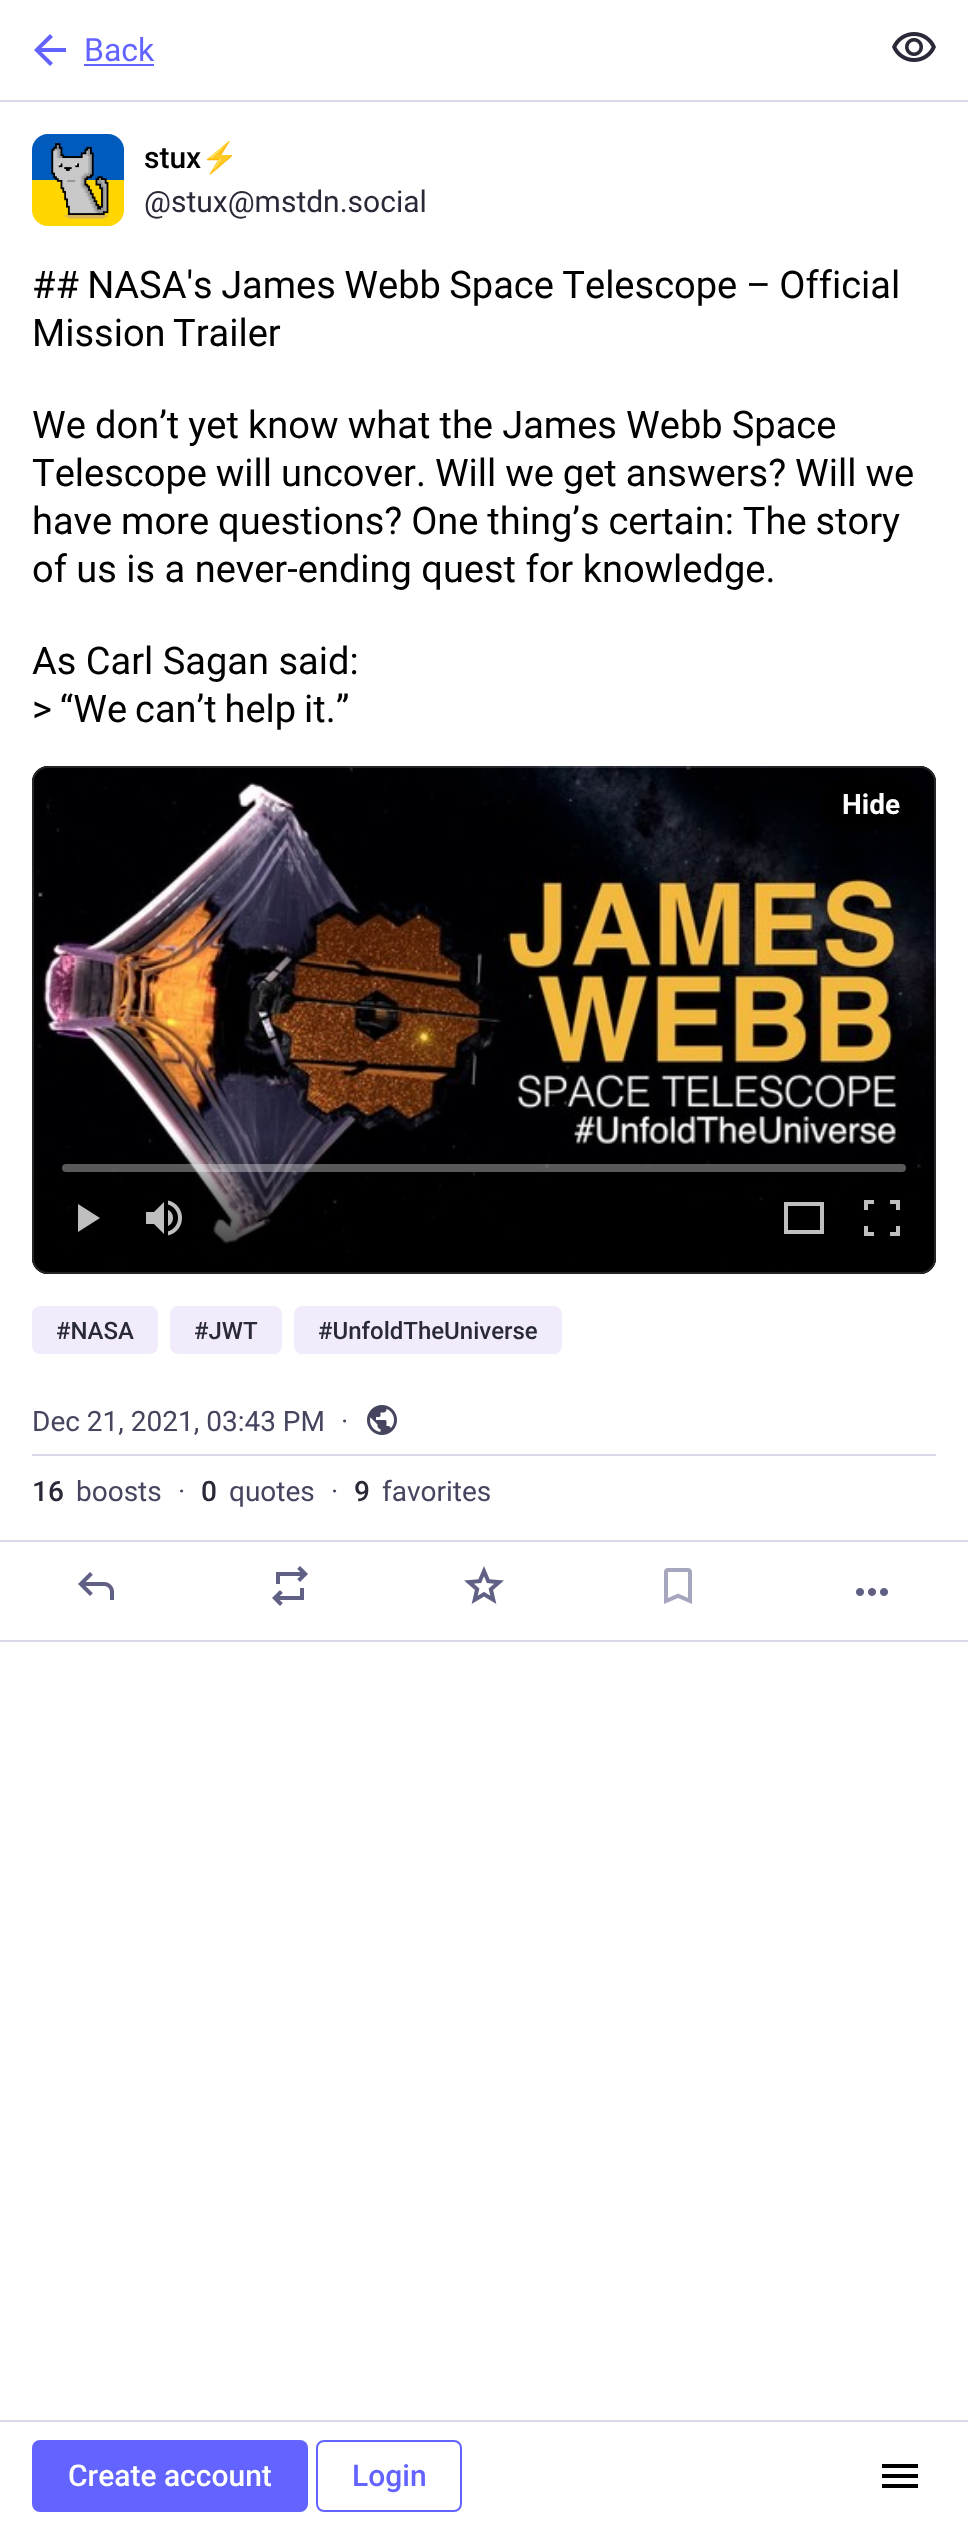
<svg xmlns="http://www.w3.org/2000/svg" width="968" height="2530" viewBox="0 0 968 2530">
  <style>*{font-kerning:none!important;font-variant-ligatures:none!important}</style>
  <defs>
    <linearGradient id="g1" gradientUnits="userSpaceOnUse" x1="484" y1="1274" x2="484" y2="1136"><stop offset="0" stop-color="#000" stop-opacity="0.85"/><stop offset="0.6" stop-color="#000" stop-opacity="0.45"/><stop offset="1" stop-color="#000" stop-opacity="0"/></linearGradient>
  </defs>
  <rect width="100%" height="100%" fill="#fff"/>
  <path d="M0 100h968v2H0z" fill="#d9d9e8"/>
  <path d="M41.5 52L53 63L50 66L34 50L50 34L53 37L41.5 48H66V52Z" fill="#6364ff"/>
  <path d="M84 64h70v2H84z" fill="#6364ff"/>
  <image x="892" y="32" width="44" height="30" href="img/1.png"/>
  <rect x="32" y="134" width="92" height="92" rx="16" fill="#e8e6f0"/>
  <image x="32" y="134" width="92" height="92" href="img/2.png"/>
  <rect x="32" y="766" width="904" height="508" rx="16" fill="#000"/>
  <image x="32" y="766" width="904" height="508" href="img/3.png"/>
  <path d="M32 1136H936V1258C936 1267 929 1274 920 1274H48C39 1274 32 1267 32 1258Z" fill="url(#g1)"/>
  <rect x="62" y="1164" width="844" height="8" rx="4" fill="#ffffff59"/>
  <path d="M78 1232V1204L100 1218Z" fill="#bfbfbf"/>
  <image x="146" y="1200" width="36" height="36" href="img/4.png"/>
  <path d="M784 1234V1202H824V1234ZM788 1230H820V1206H788ZM788 1230V1206Z" fill="#bfbfbf"/>
  <image x="864" y="1200" width="36" height="36" href="img/5.png"/>
  <rect x="33" y="767" width="902" height="506" rx="15" fill="none" stroke="#fcf8ff26" stroke-width="2"/>
  <rect x="818" y="778" width="106" height="52" rx="26" fill="#000000a6"/>
  <rect x="32" y="1306" width="126" height="48" rx="8" fill="#f1ebfb"/>
  <rect x="170" y="1306" width="112" height="48" rx="8" fill="#f1ebfb"/>
  <rect x="294" y="1306" width="268" height="48" rx="8" fill="#f1ebfb"/>
  <path d="M32 1454h904v2H32z" fill="#d9d9e8"/>
  <image x="367" y="1405" width="30" height="30" href="img/6.png"/>
  <path d="M0 1540h968v2H0z" fill="#d9d9e8"/>
  <path d="M0 1640h968v2H0z" fill="#d9d9e8"/>
  <image x="78" y="1572" width="36" height="28" href="img/7.png"/>
  <image x="272" y="1566" width="36" height="40" href="img/8.png"/>
  <image x="464" y="1566" width="40" height="38" href="img/9.png"/>
  <image x="664" y="1568" width="28" height="36" href="img/10.png"/>
  <image x="856" y="1588" width="32" height="8" href="img/11.png"/>
  <path d="M0 2420h968v2H0z" fill="#d9d9e8"/>
  <rect x="32" y="2440" width="276" height="72" rx="8" fill="#6364ff"/>
  <rect x="317" y="2441" width="144" height="70" rx="7" fill="none" stroke="#6364ff" stroke-width="2"/>
  <path d="M882 2488V2484H918V2488ZM882 2478V2474H918V2478ZM882 2468V2464H918V2468Z" fill="#000"/>
  <text x="84" y="61" font-family="Roboto" font-size="32" fill="#6364ff">Back</text>
  <text x="144" y="168" font-family="Roboto" font-size="30" font-weight="500" fill="#000">stux</text>
  <text x="201" y="168" font-family="Noto Color Emoji" font-size="30" fill="#000">⚡</text>
  <text x="144" y="212" font-family="Roboto" font-size="30" fill="#292938">@stux@mstdn.social</text>
  <g font-family="Roboto" font-size="38" fill="#000">
    <text x="32" y="298" word-spacing="-1">## NASA's James Webb Space Telescope</text>
    <text x="746" y="298" word-spacing="-1">– Official</text>
    <text x="32" y="346" word-spacing="-2">Mission Trailer</text>
    <text x="32" y="438" word-spacing="-0.25">We don’t yet know what the James Webb Space</text>
    <text x="32" y="486" word-spacing="-0.5">Telescope will uncover. Will we get answers? Will we</text>
    <text x="32" y="534" word-spacing="-0.5">have more questions? One thing’s certain: The story</text>
    <text x="32" y="582">of us is a never-ending quest for knowledge.</text>
    <text x="32" y="674">As Carl Sagan said:</text>
    <text x="32" y="722" word-spacing="-1.5">&gt; “We can’t help it.”</text>
  </g>
  <text x="842" y="814" font-family="Roboto" font-size="28" font-weight="bold" fill="#fff">Hide</text>
  <g font-family="Roboto" font-size="24" font-weight="500" fill="#292938">
    <text x="56" y="1339">#NASA</text>
    <text x="194" y="1339">#JWT</text>
    <text x="318" y="1339">#UnfoldTheUniverse</text>
  </g>
  <g font-family="Roboto" font-size="28" fill="#45455f">
    <text x="32" y="1431">Dec 21, 2021, 03:43 PM</text>
    <text x="341" y="1431">·</text>
  </g>
  <text x="32" y="1501" font-family="Roboto" font-size="28" font-weight="500" fill="#292938">16</text>
  <g font-family="Roboto" font-size="28" fill="#45455f">
    <text x="76" y="1501">boosts</text>
    <text x="178" y="1501">·</text>
  </g>
  <text x="201" y="1501" font-family="Roboto" font-size="28" font-weight="500" fill="#292938">0</text>
  <g font-family="Roboto" font-size="28" fill="#45455f">
    <text x="229" y="1501">quotes</text>
    <text x="331" y="1501">·</text>
  </g>
  <text x="354" y="1501" font-family="Roboto" font-size="28" font-weight="500" fill="#292938">9</text>
  <text x="382" y="1501" font-family="Roboto" font-size="28" fill="#45455f">favorites</text>
  <text x="68" y="2486" font-family="Roboto" font-size="30" font-weight="500" fill="#fff">Create account</text>
  <text x="352" y="2486" font-family="Roboto" font-size="30" font-weight="500" fill="#6364ff">Login</text>
</svg>
